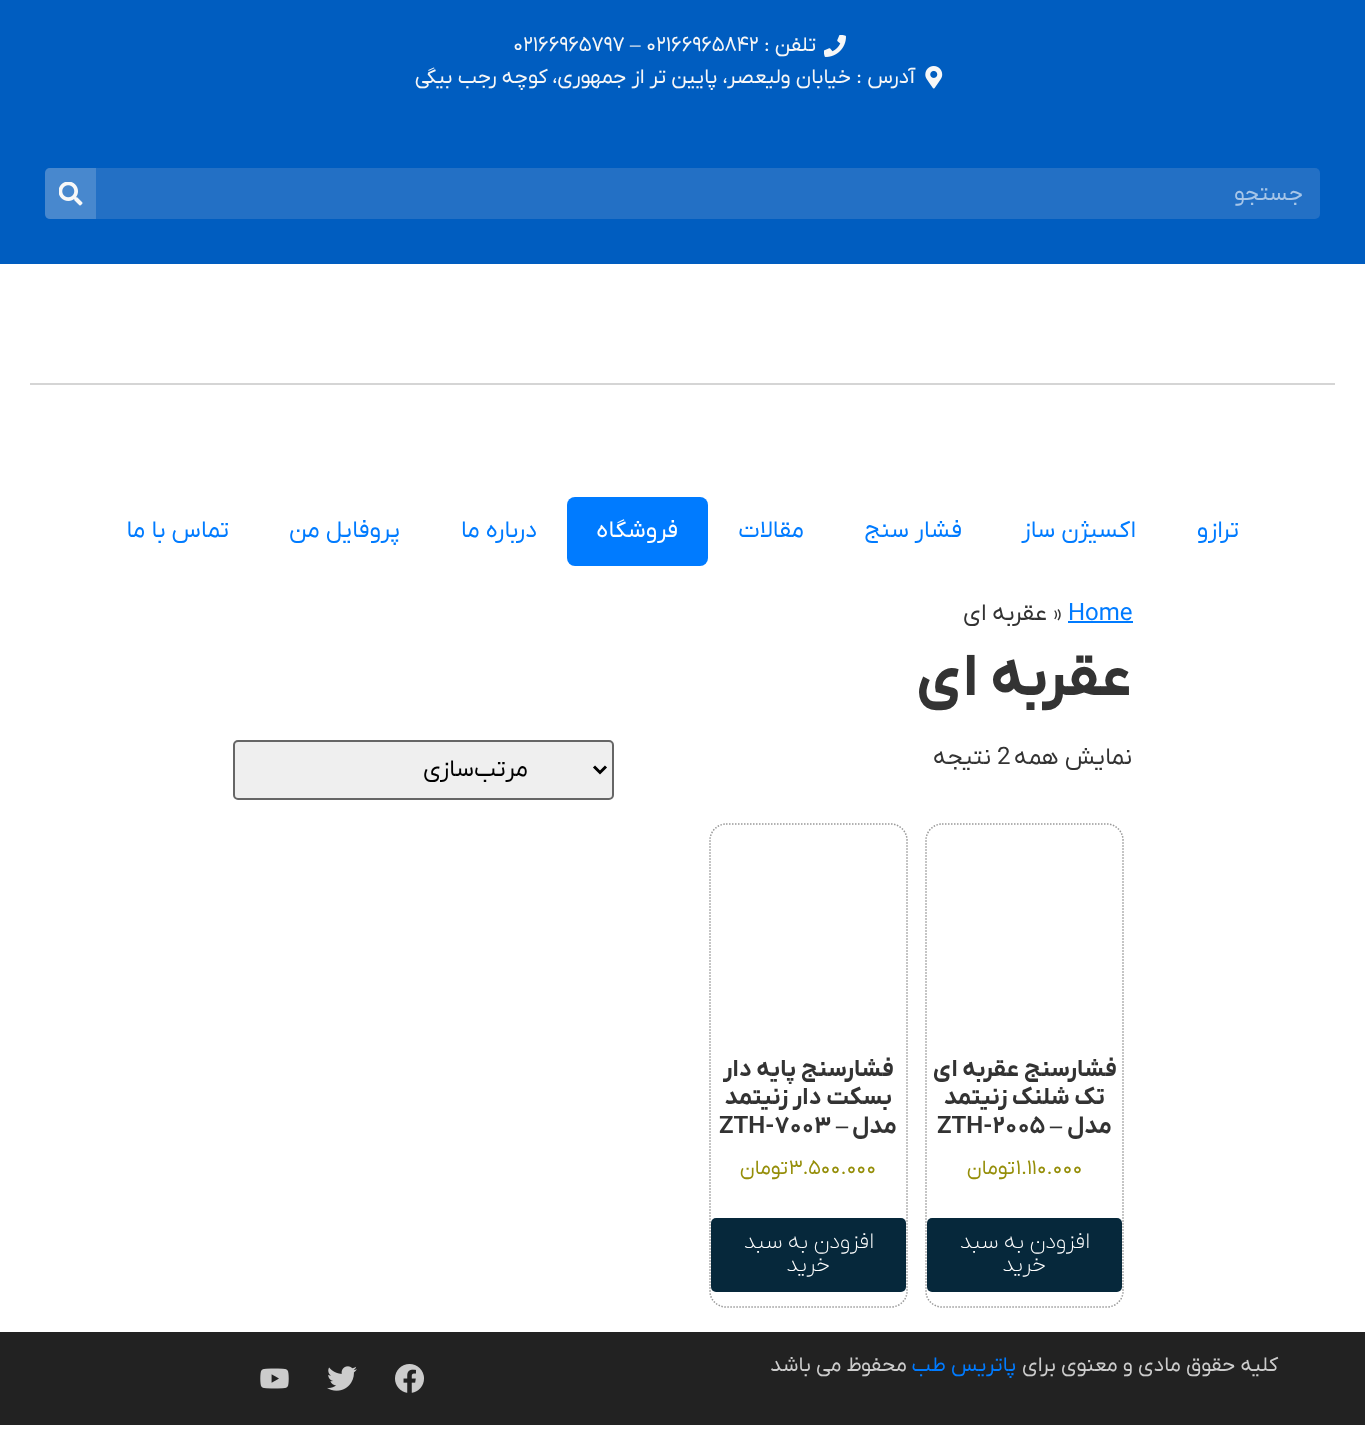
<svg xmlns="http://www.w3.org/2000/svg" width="1365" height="1451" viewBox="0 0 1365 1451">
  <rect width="100%" height="100%" fill="#fff"/>
  <path d="M0 0h1365v264H0z" fill="#005dc0"/>
  <image x="824" y="35" width="22" height="22" href="img/1.png"/>
  <image x="925" y="66" width="18" height="23" href="img/2.png"/>
  <rect x="45" y="168" width="1275" height="51" rx="5" fill="#2370c5"/>
  <path d="M50 168H96V219H50C47 219 45 217 45 214V173C45 170 47 168 50 168Z" fill="#ffffff2b"/>
  <image x="59" y="182" width="24" height="24" href="img/3.png"/>
  <path d="M30 383h1305v2H30z" fill="#d5d5d5"/>
  <rect x="567" y="497" width="141" height="69" rx="8" fill="#007bff"/>
  <path d="M1068 621h65v2H1068z" fill="#007bff"/>
  <rect x="234" y="741" width="379" height="58" rx="4" fill="#efefef" stroke="#666" stroke-width="2"/>
  <path d="M594 766.5L600 772.5L606 766.5" fill="none" stroke="#000" stroke-width="3"/>
  <path d="M942 824H1107C1115.5 824 1123 831.5 1123 840V1291.5C1123 1300 1115.5 1307 1107 1307H942C933.5 1307 926 1300 926 1291.5V840C926 831.5 933.5 824 942 824Z" fill="none" stroke="#999" stroke-width="1.5" stroke-dasharray="1.5 1.5"/>
  <rect x="927" y="1218" width="195" height="74" rx="5" fill="#06283b"/>
  <path d="M726 824H891C899.5 824 907 831.5 907 840V1291.5C907 1300 899.5 1307 891 1307H726C717.5 1307 710 1300 710 1291.5V840C710 831.5 717.5 824 726 824Z" fill="none" stroke="#999" stroke-width="1.5" stroke-dasharray="1.5 1.5"/>
  <rect x="711" y="1218" width="195" height="74" rx="5" fill="#06283b"/>
  <path d="M0 1332h1365v93H0z" fill="#222"/>
  <image x="395" y="1364" width="29" height="29" href="img/4.png"/>
  <image x="327" y="1366" width="30" height="25" href="img/5.png"/>
  <image x="260" y="1368" width="29" height="21" href="img/6.png"/>
  <text x="816" y="51" font-family="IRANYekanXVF" font-size="21" direction="rtl" fill="#f7f7f7">تلفن :</text>
  <text x="646" y="51" font-family="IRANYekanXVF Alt" font-size="21" fill="#f7f7f7">02166965842</text>
  <text x="630" y="51" font-family="Liberation Serif" font-size="21" fill="#f7f7f7">–</text>
  <text x="513" y="51" font-family="IRANYekanXVF Alt" font-size="21" fill="#f7f7f7">02166965797</text>
  <text x="915" y="83" font-family="IRANYekanXVF" font-size="21" direction="rtl" fill="#f7f7f7">آدرس : خیابان ولیعصر، پایین تر از جمهوری، کوچه رجب بیگی</text>
  <text x="1303" y="200" font-family="IRANYekanXVF" font-size="22.5" direction="rtl" fill="#a7c6e8">جستجو</text>
  <g font-family="IRANYekanXVF" font-size="24" direction="rtl" fill="#007bff">
    <text x="1239" y="537">ترازو</text>
    <text x="1136" y="537">اکسیژن ساز</text>
    <text x="962" y="537">فشار سنج</text>
    <text x="804" y="537">مقالات</text>
  </g>
  <text x="678" y="537" font-family="IRANYekanXVF" font-size="24" direction="rtl" fill="#fff">فروشگاه</text>
  <g font-family="IRANYekanXVF" font-size="24" direction="rtl" fill="#007bff">
    <text x="537" y="537">درباره ما</text>
    <text x="400" y="537">پروفایل من</text>
    <text x="229" y="537">تماس با ما</text>
  </g>
  <text x="1068" y="620" font-family="IRANYekanXVF" font-size="24" fill="#007bff">Home</text>
  <text x="1053" y="620" font-family="IRANYekanXVF" font-size="24" fill="#333">»</text>
  <text x="1047" y="620" font-family="IRANYekanXVF" font-size="24" direction="rtl" fill="#333">عقربه ای</text>
  <text x="1132" y="695" font-family="IRANYekanXVF" font-size="60" font-weight="bold" direction="rtl" fill="#333">عقربه ای</text>
  <text x="1132" y="764" font-family="IRANYekanXVF" font-size="24" direction="rtl" fill="#333">نمایش همه</text>
  <text x="997" y="764" font-family="IRANYekanXVF" font-size="24" fill="#333">2</text>
  <text x="991" y="764" font-family="IRANYekanXVF" font-size="24" direction="rtl" fill="#333">نتیجه</text>
  <text x="528" y="776" font-family="IRANYekanXVF" font-size="24" direction="rtl" fill="#000">مرتب‌سازی</text>
  <g font-family="IRANYekanXVF" font-size="24" font-weight="bold" direction="rtl" fill="#333">
    <text x="1117" y="1076">فشارسنج عقربه ای</text>
    <text x="1105" y="1104">تک شلنک زنیتمد</text>
    <text x="1112" y="1133">مدل</text>
  </g>
  <text x="1062" y="1133" font-family="Liberation Serif" font-size="24" font-weight="bold" direction="rtl" fill="#333">–</text>
  <text x="937" y="1133" font-family="IRANYekanXVF Alt" font-size="24" font-weight="bold" fill="#333">ZTH-2005</text>
  <text x="1016" y="1174" font-family="IRANYekanXVF Alt" font-size="20.5" fill="#958e09">1.110.000</text>
  <text x="1015" y="1174" font-family="IRANYekanXVF" font-size="20.5" direction="rtl" fill="#958e09">تومان</text>
  <g font-family="IRANYekanXVF" font-size="22.5" font-weight="200" direction="rtl" fill="#fff">
    <text x="1090" y="1248">افزودن به سبد</text>
    <text x="1046" y="1271">خرید</text>
  </g>
  <g font-family="IRANYekanXVF" font-size="24" font-weight="bold" direction="rtl" fill="#333">
    <text x="894" y="1076">فشارسنج پایه دار</text>
    <text x="892" y="1104">بسکت دار زنیتمد</text>
    <text x="897" y="1133">مدل</text>
  </g>
  <text x="848" y="1133" font-family="Liberation Serif" font-size="24" font-weight="bold" direction="rtl" fill="#333">–</text>
  <text x="719" y="1133" font-family="IRANYekanXVF Alt" font-size="24" font-weight="bold" fill="#333">ZTH-7003</text>
  <text x="789" y="1174" font-family="IRANYekanXVF Alt" font-size="20.5" fill="#958e09">3.500.000</text>
  <text x="788" y="1174" font-family="IRANYekanXVF" font-size="20.5" direction="rtl" fill="#958e09">تومان</text>
  <g font-family="IRANYekanXVF" font-size="22.5" font-weight="200" direction="rtl" fill="#fff">
    <text x="874" y="1248">افزودن به سبد</text>
    <text x="830" y="1271">خرید</text>
  </g>
  <text x="1278" y="1371" font-family="IRANYekanXVF" font-size="21" direction="rtl" fill="#ccc">کلیه حقوق مادی و معنوی برای</text>
  <text x="1016" y="1371" font-family="IRANYekanXVF" font-size="21" direction="rtl" fill="#007bff">پاتریس طب</text>
  <text x="907" y="1371" font-family="IRANYekanXVF" font-size="21" direction="rtl" fill="#ccc">محفوظ می باشد</text>
</svg>
